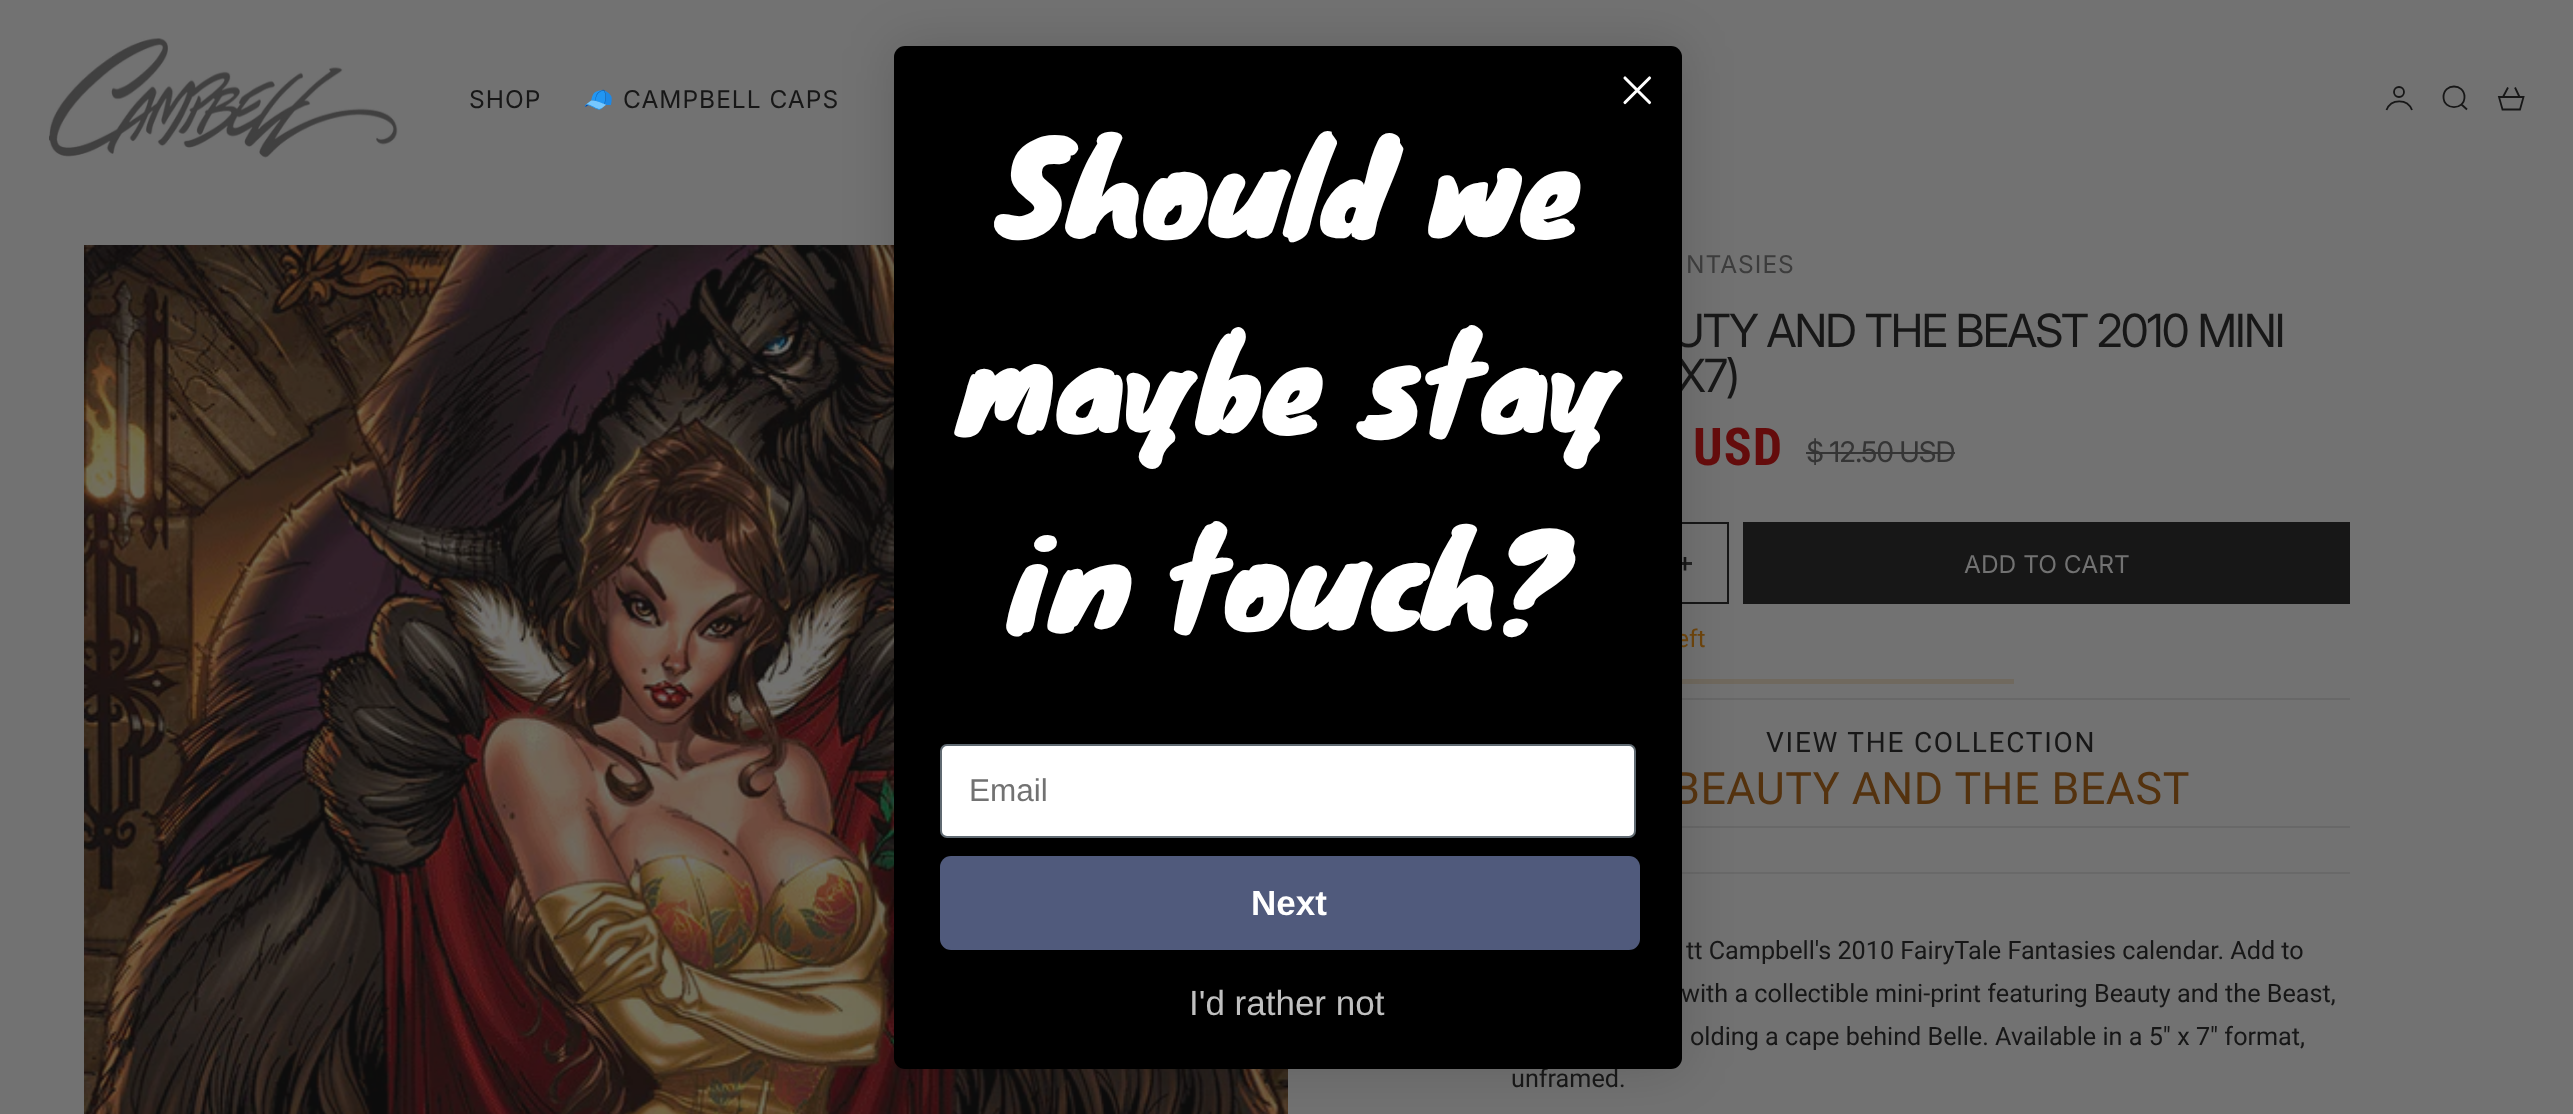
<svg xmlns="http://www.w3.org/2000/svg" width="2573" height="1114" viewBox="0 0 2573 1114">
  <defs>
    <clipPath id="clip1"><path d="M1678 557h14v14H1678z"/></clipPath>
  </defs>
  <rect width="100%" height="100%" fill="#727272"/>
  <image x="49" y="38" width="349" height="120" href="img/1.png"/>
  <path d="M2412 110C2407.5 98.5 2391 98.5 2386.5 110" fill="none" stroke="#171717" stroke-width="1.8"/>
  <circle cx="2399" cy="92" r="5" fill="none" stroke="#171717" stroke-width="1.8"/>
  <path d="M2443.5 97C2443.5 110.5 2464.5 110.5 2464.5 97C2464.5 83 2443.5 83 2443.5 97ZM2461.5 104.5L2467 109.5" fill="none" stroke="#171717" stroke-width="1.8"/>
  <path d="M2502.5 109.5L2499 97H2523.5L2520 109.5ZM2503 97L2508 87.5M2519.5 97L2515 87.5" fill="none" stroke="#171717" stroke-width="1.8"/>
  <image x="84" y="245" width="1204" height="869" href="img/2.png"/>
  <path d="M1511 523h217v80H1511z" fill="none" stroke="#171717" stroke-width="2"/>
  <path d="M1678 562h14v3H1678z" fill="#232323"/>
  <g clip-path="url(#clip1)">
    <path d="M1685 556.5V570.5" fill="none" stroke="#171717" stroke-width="2.6"/>
  </g>
  <path d="M1743 522h607v82H1743z" fill="#171717"/>
  <path d="M1682 679h332v5H1682z" fill="#70695e"/>
  <path d="M1682 698h668v2H1682z" fill="#686868"/>
  <path d="M1682 826h668v2H1682z" fill="#686868"/>
  <path d="M1682 872h668v2H1682z" fill="#696969"/>
  <rect x="894" y="46" width="788" height="1023" rx="11" fill="#00000026" filter="blur(26px)"/>
  <path d="M1806 452h149v2H1806z" fill="#353535"/>
  <text x="469" y="108" font-family="Inter" font-size="24.5" letter-spacing="1" fill="#171717">SHOP</text>
  <text x="583" y="108" font-family="Noto Color Emoji" font-size="24.5" letter-spacing="1" fill="#171717">🧢</text>
  <text x="623" y="108" font-family="Inter" font-size="24.5" letter-spacing="1" fill="#171717">CAMPBELL CAPS</text>
  <text x="1686" y="273" font-family="Inter" font-size="24.5" letter-spacing="1" fill="#3c3c3c">NTASIES</text>
  <g font-family="'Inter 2'" font-size="45.75" letter-spacing="-2.3" fill="#171717">
    <text x="1672" y="347">UTY AND THE BEAST 2010 MINI</text>
    <text x="1676" y="392">X7)</text>
  </g>
  <text x="1693" y="465" font-family="Roboto Condensed" font-size="52" font-weight="bold" letter-spacing="1" fill="#640c0c">USD</text>
  <text x="1806" y="462" font-family="'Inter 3'" font-size="28.5" letter-spacing="-1.5" fill="#353535">$ 12.50 USD</text>
  <text x="1964" y="573" font-family="Inter" font-size="24.5" fill="#727272">ADD TO CART</text>
  <text x="1676" y="647" font-family="Roboto" font-size="24.5" fill="#6b430c">eft</text>
  <text x="1766" y="752" font-family="Roboto" font-size="28" letter-spacing="1.75" fill="#171717">VIEW THE COLLECTION</text>
  <text x="1672" y="804" font-family="Roboto" font-size="44.75" letter-spacing="0.5" fill="#54320e">BEAUTY AND THE BEAST</text>
  <g font-family="Roboto" font-size="25.2" fill="#171717">
    <text x="1686" y="959">tt Campbell's 2010 FairyTale Fantasies calendar. Add to</text>
    <text x="1681" y="1002">with a collectible mini-print featuring Beauty and the Beast,</text>
    <text x="1690" y="1045">olding a cape behind Belle. Available in a 5" x 7" format,</text>
    <text x="1511" y="1087">unframed.</text>
  </g>
  <rect x="894" y="46" width="788" height="1023" rx="11" fill="#000"/>
  <path d="M1625 78L1649.5 102.5M1625 102.5L1649.5 78Z" fill="none" stroke="#fff" stroke-width="3.1" stroke-linecap="round" stroke-linejoin="round"/>
  <text x="1189" y="1015" font-family="Liberation Sans" font-size="35" fill="#c0c0c0">I'd rather not</text>
  <rect x="940" y="856" width="700" height="94" rx="11" fill="#505a7c"/>
  <text x="1251" y="915" font-family="Liberation Sans" font-size="35" font-weight="bold" fill="#fff">Next</text>
  <rect x="941" y="745" width="694" height="92" rx="6" fill="#fff" stroke="#606a72" stroke-width="2"/>
  <text x="969" y="801" font-family="Liberation Sans" font-size="31.5" fill="#727272">Email</text>
  <g font-family="Knewave" font-size="126" fill="#fff">
    <text x="1006" y="625">in touch?</text>
    <text x="957" y="429">maybe stay</text>
    <text x="997" y="233">Should we</text>
  </g>
</svg>
